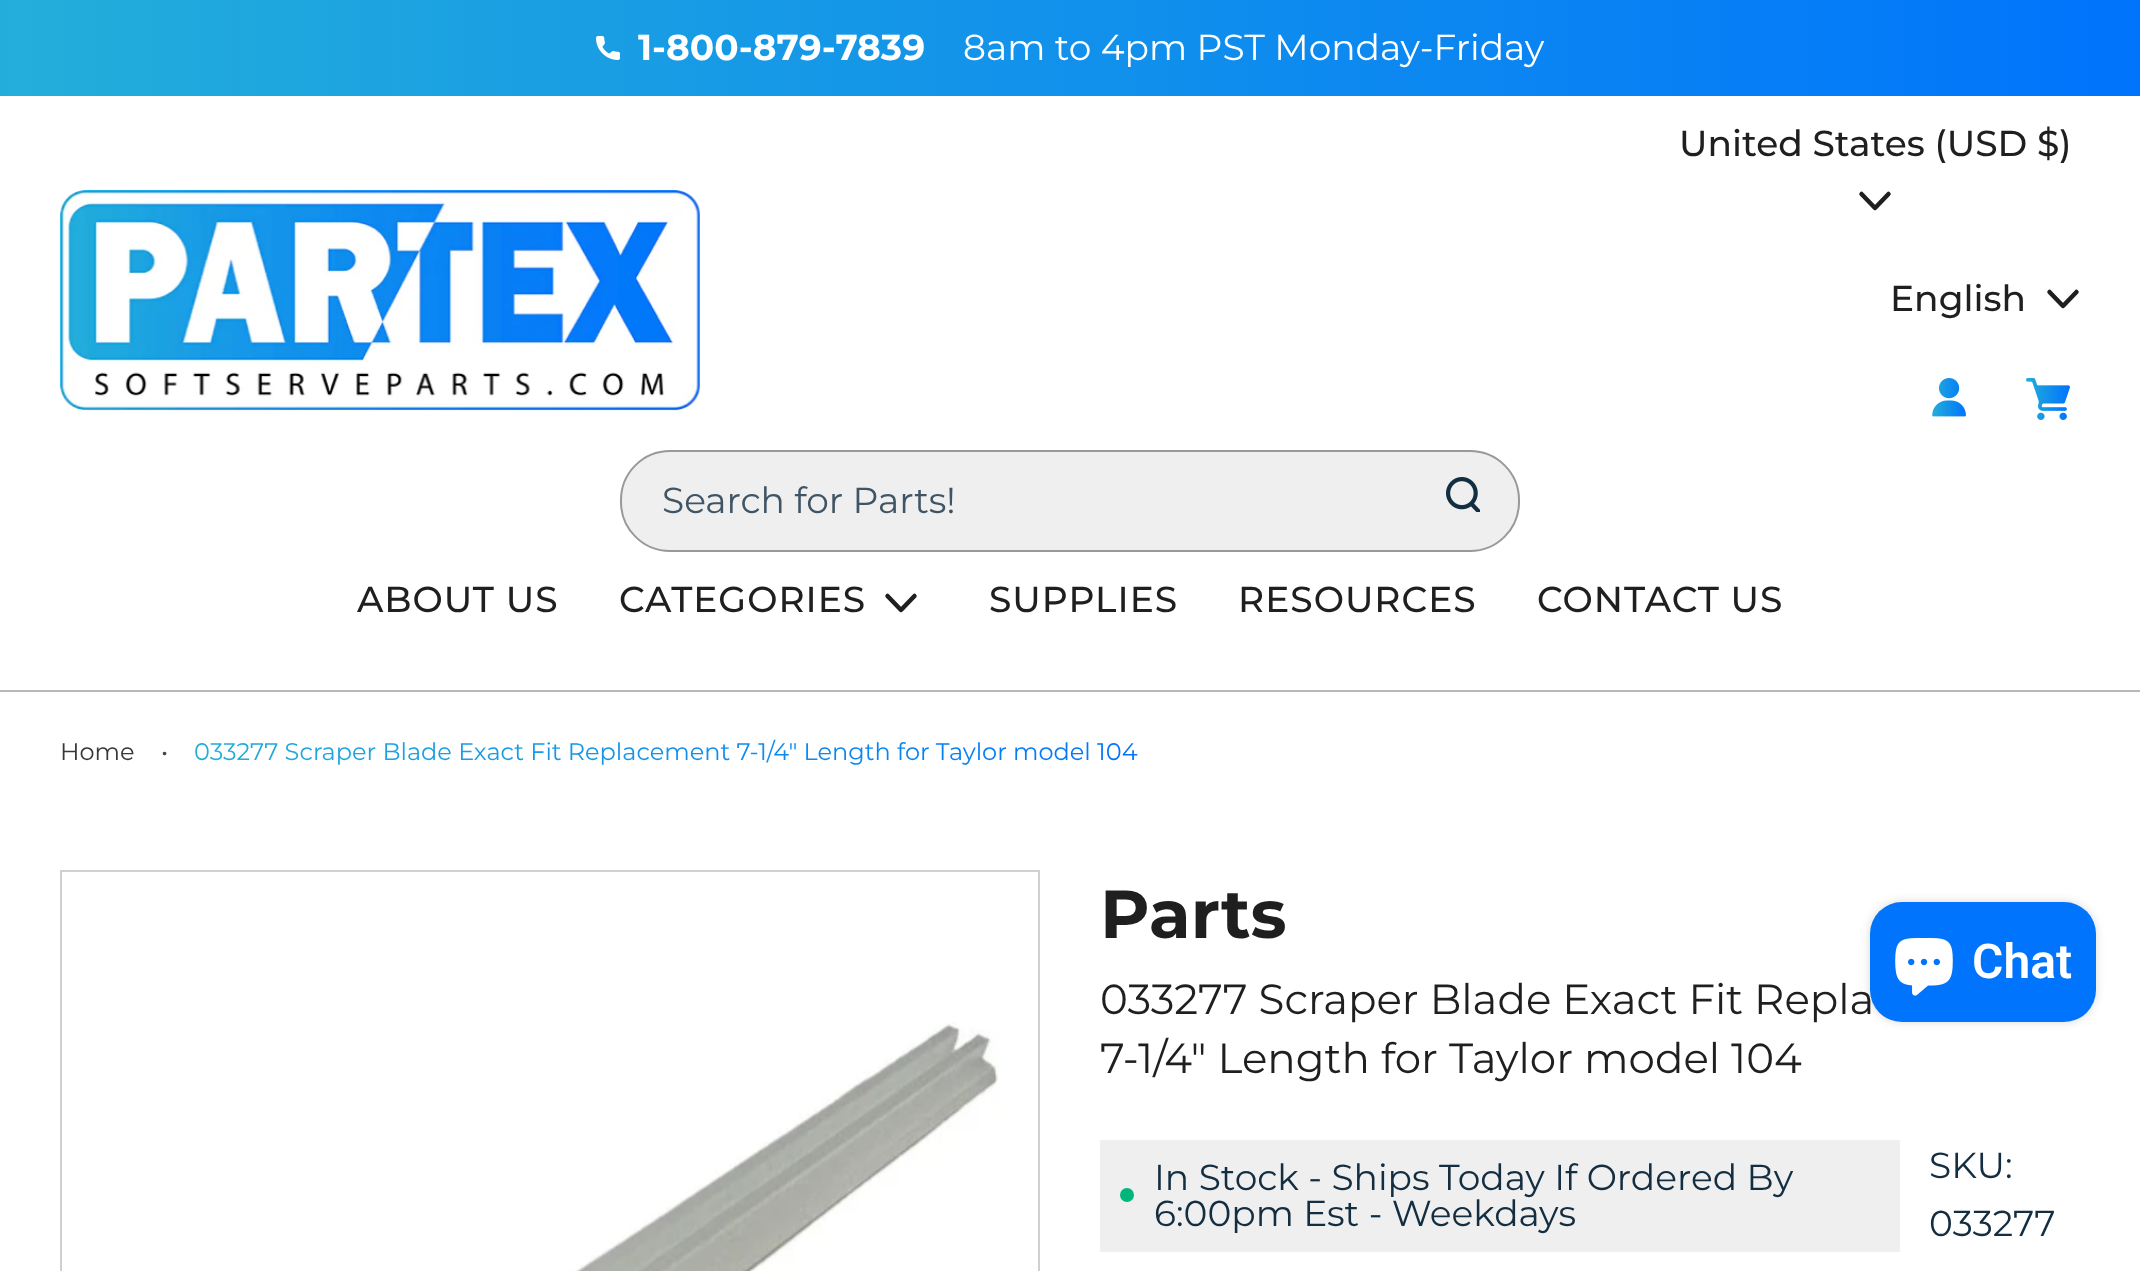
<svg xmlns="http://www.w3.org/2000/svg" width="2140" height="1271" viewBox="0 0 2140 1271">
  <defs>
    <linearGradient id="g1" gradientUnits="userSpaceOnUse" x1="194" y1="751" x2="1148" y2="751"><stop offset="0" stop-color="#23aeda"/><stop offset="1" stop-color="#0074fc"/></linearGradient>
    <linearGradient id="g2" gradientUnits="userSpaceOnUse" x1="0" y1="48" x2="2140" y2="48"><stop offset="0" stop-color="#23aeda"/><stop offset="1" stop-color="#0074fc"/></linearGradient>
  </defs>
  <rect width="100%" height="100%" fill="#fff"/>
  <path d="M0 0h2140v96H0z" fill="url(#g2)"/>
  <image x="596" y="36" width="24" height="24" href="img/1.png"/>
  <path d="M0 690h2140v2H0z" fill="#b8b8b8"/>
  <image x="60" y="190" width="640" height="221" href="img/2.png"/>
  <path d="M1861.5 194L1875 208L1888.5 194" fill="none" stroke="#1f1f1f" stroke-width="4.5" stroke-linecap="round" stroke-linejoin="round"/>
  <path d="M2049.5 292L2063 306L2076.5 292" fill="none" stroke="#1f1f1f" stroke-width="4.5" stroke-linecap="round" stroke-linejoin="round"/>
  <image x="1932" y="378" width="34" height="39" href="img/3.png"/>
  <image x="2026" y="378" width="44" height="42" href="img/4.png"/>
  <rect x="621" y="451" width="898" height="100" rx="49" fill="#efefef" stroke="#999" stroke-width="2"/>
  <image x="1446" y="477" width="34" height="35" href="img/5.png"/>
  <path d="M887.5 596L901 610L914.5 596" fill="none" stroke="#1f1f1f" stroke-width="4.5" stroke-linecap="round" stroke-linejoin="round"/>
  <path d="M61 871h978v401H61z" fill="none" stroke="#d0d0d0" stroke-width="2"/>
  <image x="570" y="1022" width="429" height="249" href="img/6.png"/>
  <path d="M1100 1140h800v112H1100z" fill="#efefef"/>
  <circle cx="1127" cy="1195" r="7" fill="#00b67a"/>
  <rect x="1870" y="902" width="226" height="120" rx="32" fill="#00000026" filter="blur(5px)"/>
  <text x="638" y="60" font-family="Montserrat" font-size="36" font-weight="bold" fill="#fff">1-800-879-7839</text>
  <text x="963" y="60" font-family="Montserrat" font-size="36" fill="#fff">8am to 4pm PST Monday-Friday</text>
  <g font-family="Montserrat" font-size="36" font-weight="500" fill="#1f1f1f">
    <text x="1679" y="156">United States (USD $)</text>
    <text x="1890" y="311">English</text>
  </g>
  <text x="662" y="513" font-family="Montserrat" font-size="36" fill="#3f5464">Search for Parts!</text>
  <g font-family="Montserrat" font-size="36" font-weight="500" letter-spacing="1" fill="#1f1f1f">
    <text x="357" y="612">ABOUT US</text>
    <text x="619" y="612">CATEGORIES</text>
    <text x="989" y="612">SUPPLIES</text>
    <text x="1238" y="612">RESOURCES</text>
    <text x="1537" y="612">CONTACT US</text>
  </g>
  <text x="60" y="760" font-family="Montserrat" font-size="24" fill="#373737">Home</text>
  <text x="161" y="760" font-family="Montserrat" font-size="24" fill="#434343">•</text>
  <text x="194" y="760" font-family="Montserrat" font-size="24" fill="url(#g1)">033277 Scraper Blade Exact Fit Replacement 7-1/4" Length for Taylor model 104</text>
  <text x="1100" y="938" font-family="Montserrat" font-size="68" font-weight="bold" fill="#1f1f1f">Parts</text>
  <g font-family="Montserrat" font-size="42" fill="#1f1f1f">
    <text x="1100" y="1014">033277 Scraper Blade Exact Fit Repla</text>
    <text x="1100" y="1073">7-1/4" Length for Taylor model 104</text>
  </g>
  <g font-family="Montserrat" font-size="36" fill="#132d41">
    <text x="1154" y="1190">In Stock - Ships Today If Ordered By</text>
    <text x="1154" y="1226">6:00pm Est - Weekdays</text>
    <text x="1929" y="1178">SKU:</text>
    <text x="1929" y="1236">033277</text>
  </g>
  <rect x="1870" y="902" width="226" height="120" rx="32" fill="#0074fc"/>
  <image x="1895" y="938" width="58" height="58" href="img/7.png"/>
  <text x="1972" y="978" font-family="Roboto" font-size="48" font-weight="600" fill="#fff">Chat</text>
</svg>
